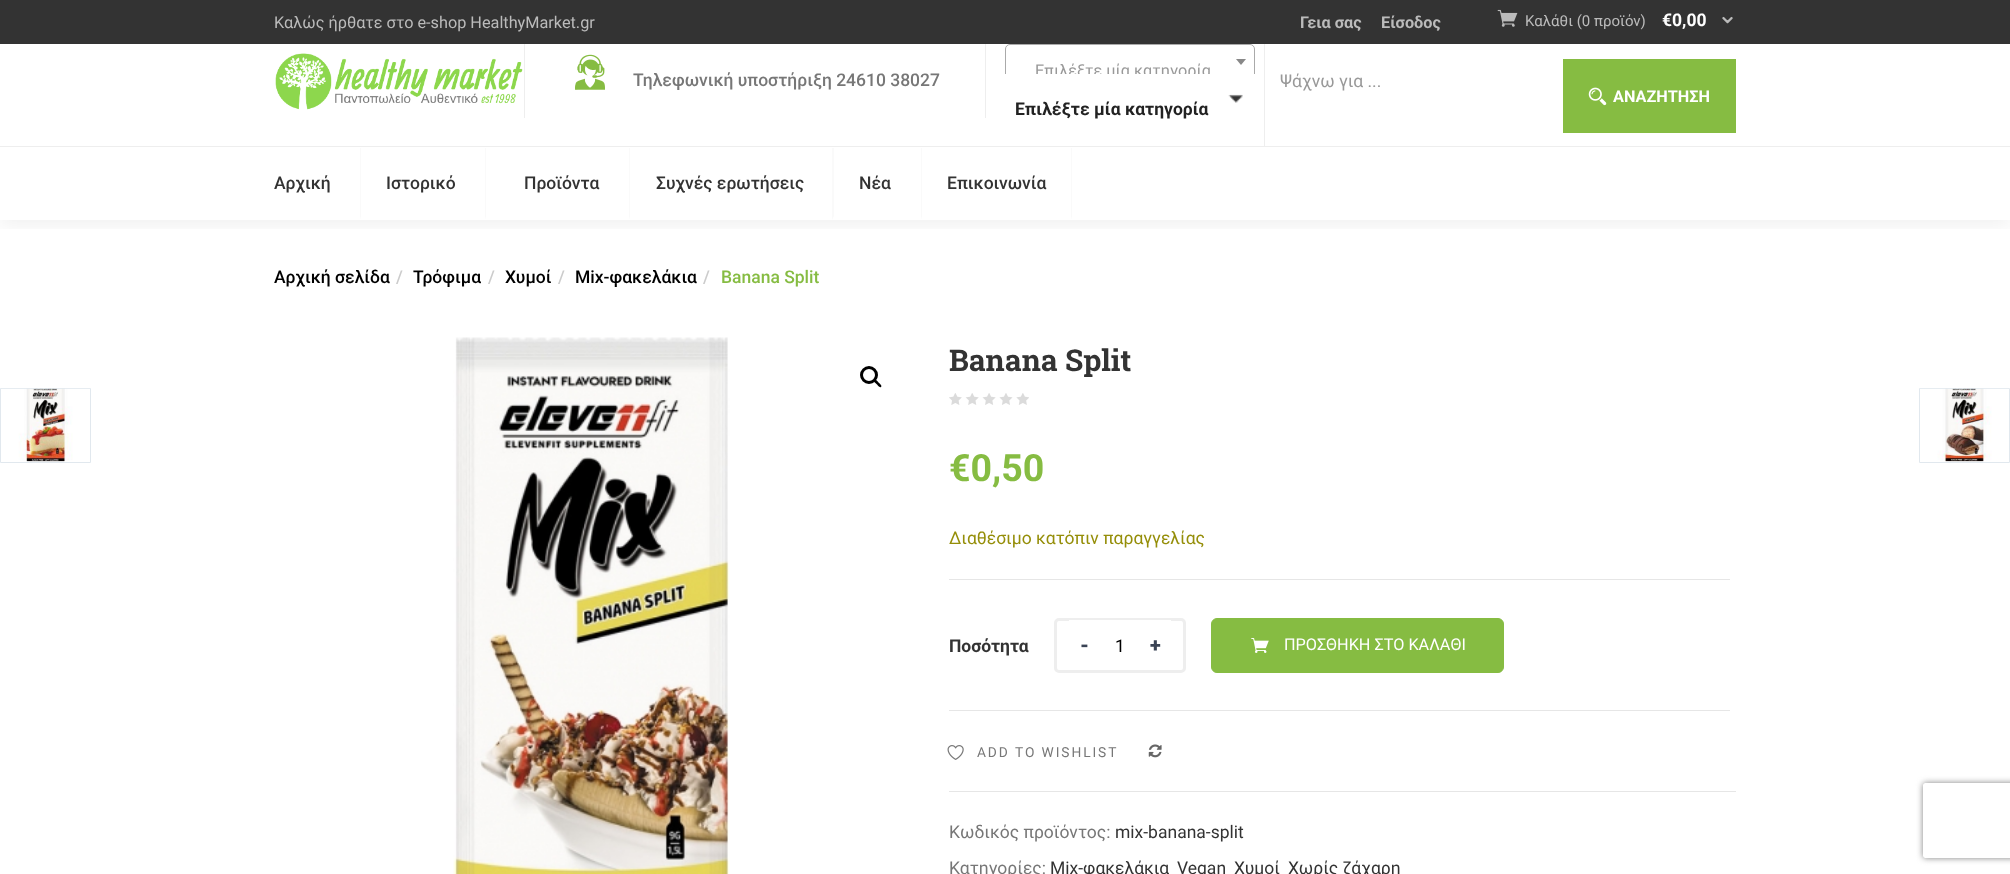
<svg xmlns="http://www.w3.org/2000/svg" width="2010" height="874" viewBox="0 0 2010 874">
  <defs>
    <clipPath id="clip1"><path d="M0 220h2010v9H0z"/></clipPath>
    <clipPath id="clip2"><path d="M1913 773H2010V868H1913ZM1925.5 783H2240.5C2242 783 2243 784 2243 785.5V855.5C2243 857 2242 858 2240.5 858H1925.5C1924 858 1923 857 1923 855.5V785.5C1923 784 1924 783 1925.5 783Z" clip-rule="evenodd"/></clipPath>
  </defs>
  <rect width="100%" height="100%" fill="#fff"/>
  <g clip-path="url(#clip1)">
    <path d="M0 5h2010v220H0z" fill="#0000000f" filter="blur(9.5px)"/>
  </g>
  <path d="M0 0h2010v44H0z" fill="#333"/>
  <image x="1497" y="9" width="21" height="18" href="img/1.png"/>
  <image x="1722" y="16" width="11" height="8" href="img/2.png"/>
  <path d="M0 146h2010v1H0z" fill="#eee"/>
  <image x="275" y="53" width="248" height="57" href="img/3.png"/>
  <path d="M985 44h1v74H985z" fill="#eee"/>
  <path d="M524 44h1v74H524z" fill="#eee"/>
  <image x="575" y="54" width="30" height="36" href="img/4.png"/>
  <rect x="1005.5" y="44.5" width="249" height="34" rx="4.5" fill="none" stroke="#aaa"/>
  <path d="M1236 59H1246L1241 65Z" fill="#888"/>
  <image x="1228" y="94" width="15" height="9" href="img/5.png"/>
  <path d="M1264 44h1v102H1264z" fill="#eee"/>
  <path d="M1563 59h173v74H1563z" fill="#86bc42"/>
  <image x="1588" y="87" width="19" height="19" href="img/6.png"/>
  <path d="M360 220V148H361V216Z" fill="#fafafa"/>
  <path d="M485 220V148H486V216Z" fill="#fafafa"/>
  <path d="M629 220V148H630V216Z" fill="#fafafa"/>
  <path d="M832 220V148H834V216Z" fill="#fafafa"/>
  <path d="M1072 148V220L1071 216V148Z" fill="#fafafa"/>
  <path d="M921 220V148H922V216Z" fill="#fafafa"/>
  <image x="453" y="337" width="277" height="537" href="img/7.png"/>
  <circle cx="869" cy="375" r="7.5" fill="none" stroke="#000" stroke-width="3"/>
  <path d="M874 379.5C875.5 378.5 877.5 381.5 878.5 382.5C879 383 882.5 385.5 881 387C879.5 388 877.5 385 876.5 384C876 383.5 872.5 381 874 379.5Z" fill="#000"/>
  <image x="949" y="393" width="80" height="12" href="img/8.png"/>
  <path d="M949 579h781v1H949z" fill="#e6e6e6"/>
  <path d="M949 710h781v1H949z" fill="#e6e6e6"/>
  <rect x="1055.5" y="619.5" width="129" height="52" rx="3.5" fill="none" stroke="#eee" stroke-width="3"/>
  <path d="M1069 620h102v1H1069z" fill="#fff"/>
  <rect x="1211.5" y="618.5" width="292" height="54" rx="5.5" fill="#86bc42" stroke="#86bc42"/>
  <image x="1251" y="638" width="18" height="15" href="img/9.png"/>
  <image x="947" y="745" width="17" height="15" href="img/10.png"/>
  <image x="1148" y="744" width="14" height="14" href="img/11.png"/>
  <path d="M949 791h787v1H949z" fill="#e6e6e6"/>
  <path d="M0.5 388.5h90v74H0.5z" fill="none" stroke="#e1e8ee"/>
  <image x="1" y="388" width="89" height="74" href="img/12.png"/>
  <path d="M1919.5 388.5h90v74H1919.5z" fill="none" stroke="#e1e8ee"/>
  <image x="1920" y="388" width="89" height="74" href="img/13.png"/>
  <g clip-path="url(#clip2)">
    <rect x="1923" y="783" width="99" height="75" rx="2.5" fill="#808080" filter="blur(3px)"/>
  </g>
  <text x="274" y="28" font-family="Roboto" font-size="16.25" fill="#bbb">Καλώς ήρθατε στο e-shop HealthyMarket.gr</text>
  <g font-family="Roboto" font-size="16.25" font-weight="bold" fill="#bbb">
    <text x="1300" y="28">Γεια σας</text>
    <text x="1381" y="28">Είσοδος</text>
  </g>
  <text x="1525" y="26" font-family="Roboto" font-size="15" fill="#bbb">Καλάθι (0 προϊόν)</text>
  <text x="1662" y="26" font-family="Roboto" font-size="17.5" font-weight="bold" fill="#fff">€0,00</text>
  <text x="633" y="86" font-family="Roboto" font-size="17.5" font-weight="500" fill="#777">Τηλεφωνική υποστήριξη 24610 38027</text>
  <text x="1035" y="76" font-family="Roboto" font-size="16.25" fill="#999">Επιλέξτε μία κατηγορία</text>
  <path d="M1005 74h250v6H1005z" fill="#fff"/>
  <text x="1015" y="115" font-family="Roboto" font-size="17.5" font-weight="bold" fill="#222">Επιλέξτε μία κατηγορία</text>
  <text x="1280" y="87" font-family="Roboto" font-size="17.5" fill="#999">Ψάχνω για ...</text>
  <text x="1613" y="102" font-family="Roboto" font-size="16.25" font-weight="bold" fill="#fff">ΑΝΑΖΗΤΗΣΗ</text>
  <g font-family="Roboto" font-size="17.5" font-weight="500" fill="#333">
    <text x="274" y="189">Αρχική</text>
    <text x="386" y="189">Ιστορικό</text>
    <text x="524" y="189">Προϊόντα</text>
    <text x="656" y="189">Συχνές ερωτήσεις</text>
    <text x="859" y="189">Νέα</text>
    <text x="947" y="189">Επικοινωνία</text>
  </g>
  <text x="274" y="283" font-family="Roboto" font-size="17.5" font-weight="500" fill="#000">Αρχική σελίδα</text>
  <text x="396" y="283" font-family="Roboto" font-size="17.5" font-weight="500" fill="#ccc">/</text>
  <text x="413" y="283" font-family="Roboto" font-size="17.5" font-weight="500" fill="#000">Τρόφιμα</text>
  <text x="488" y="283" font-family="Roboto" font-size="17.5" font-weight="500" fill="#ccc">/</text>
  <text x="505" y="283" font-family="Roboto" font-size="17.5" font-weight="500" fill="#000">Χυμοί</text>
  <text x="558" y="283" font-family="Roboto" font-size="17.5" font-weight="500" fill="#ccc">/</text>
  <text x="575" y="283" font-family="Roboto" font-size="17.5" font-weight="500" fill="#000">Mix-φακελάκια</text>
  <text x="703" y="283" font-family="Roboto" font-size="17.5" font-weight="500" fill="#ccc">/</text>
  <text x="721" y="283" font-family="Roboto" font-size="17.5" font-weight="500" fill="#86bc42">Banana Split</text>
  <text x="949" y="371" font-family="Roboto Slab" font-size="30" font-weight="bold" fill="#333">Banana Split</text>
  <text x="949" y="481" font-family="Roboto" font-size="37.5" font-weight="bold" fill="#86bc42">€0,50</text>
  <text x="949" y="544" font-family="Roboto" font-size="17.5" fill="#958e09">Διαθέσιμο κατόπιν παραγγελίας</text>
  <text x="949" y="652" font-family="Roboto" font-size="17.5" font-weight="bold" fill="#333">Ποσότητα</text>
  <text x="1080" y="652" font-family="Roboto" font-size="20" font-weight="900" fill="#3a4354">-</text>
  <text x="1115" y="652" font-family="Roboto" font-size="17.5" fill="#000">1</text>
  <text x="1150" y="652" font-family="Roboto" font-size="20" font-weight="900" fill="#3a4354">+</text>
  <text x="1284" y="650" font-family="Roboto" font-size="16.25" fill="#fff">ΠΡΟΣΘΗΚΗ ΣΤΟ ΚΑΛΑΘΙ</text>
  <text x="977" y="757" font-family="Roboto" font-size="13.75" letter-spacing="1.9" fill="#777">ADD TO WISHLIST</text>
  <text x="949" y="838" font-family="Roboto" font-size="17.5" fill="#777">Κωδικός προϊόντος:</text>
  <text x="1115" y="838" font-family="Roboto" font-size="17.5" fill="#333">mix-banana-split</text>
  <text x="949" y="874" font-family="Roboto" font-size="17.5" fill="#777">Κατηγορίες:</text>
  <g font-family="Roboto" font-size="17.5" fill="#333">
    <text x="1050" y="874">Mix-φακελάκια</text>
    <text x="1177" y="874">Vegan</text>
    <text x="1234" y="874">Χυμοί</text>
    <text x="1288" y="874">Χωρίς ζάχαρη</text>
  </g>
</svg>
